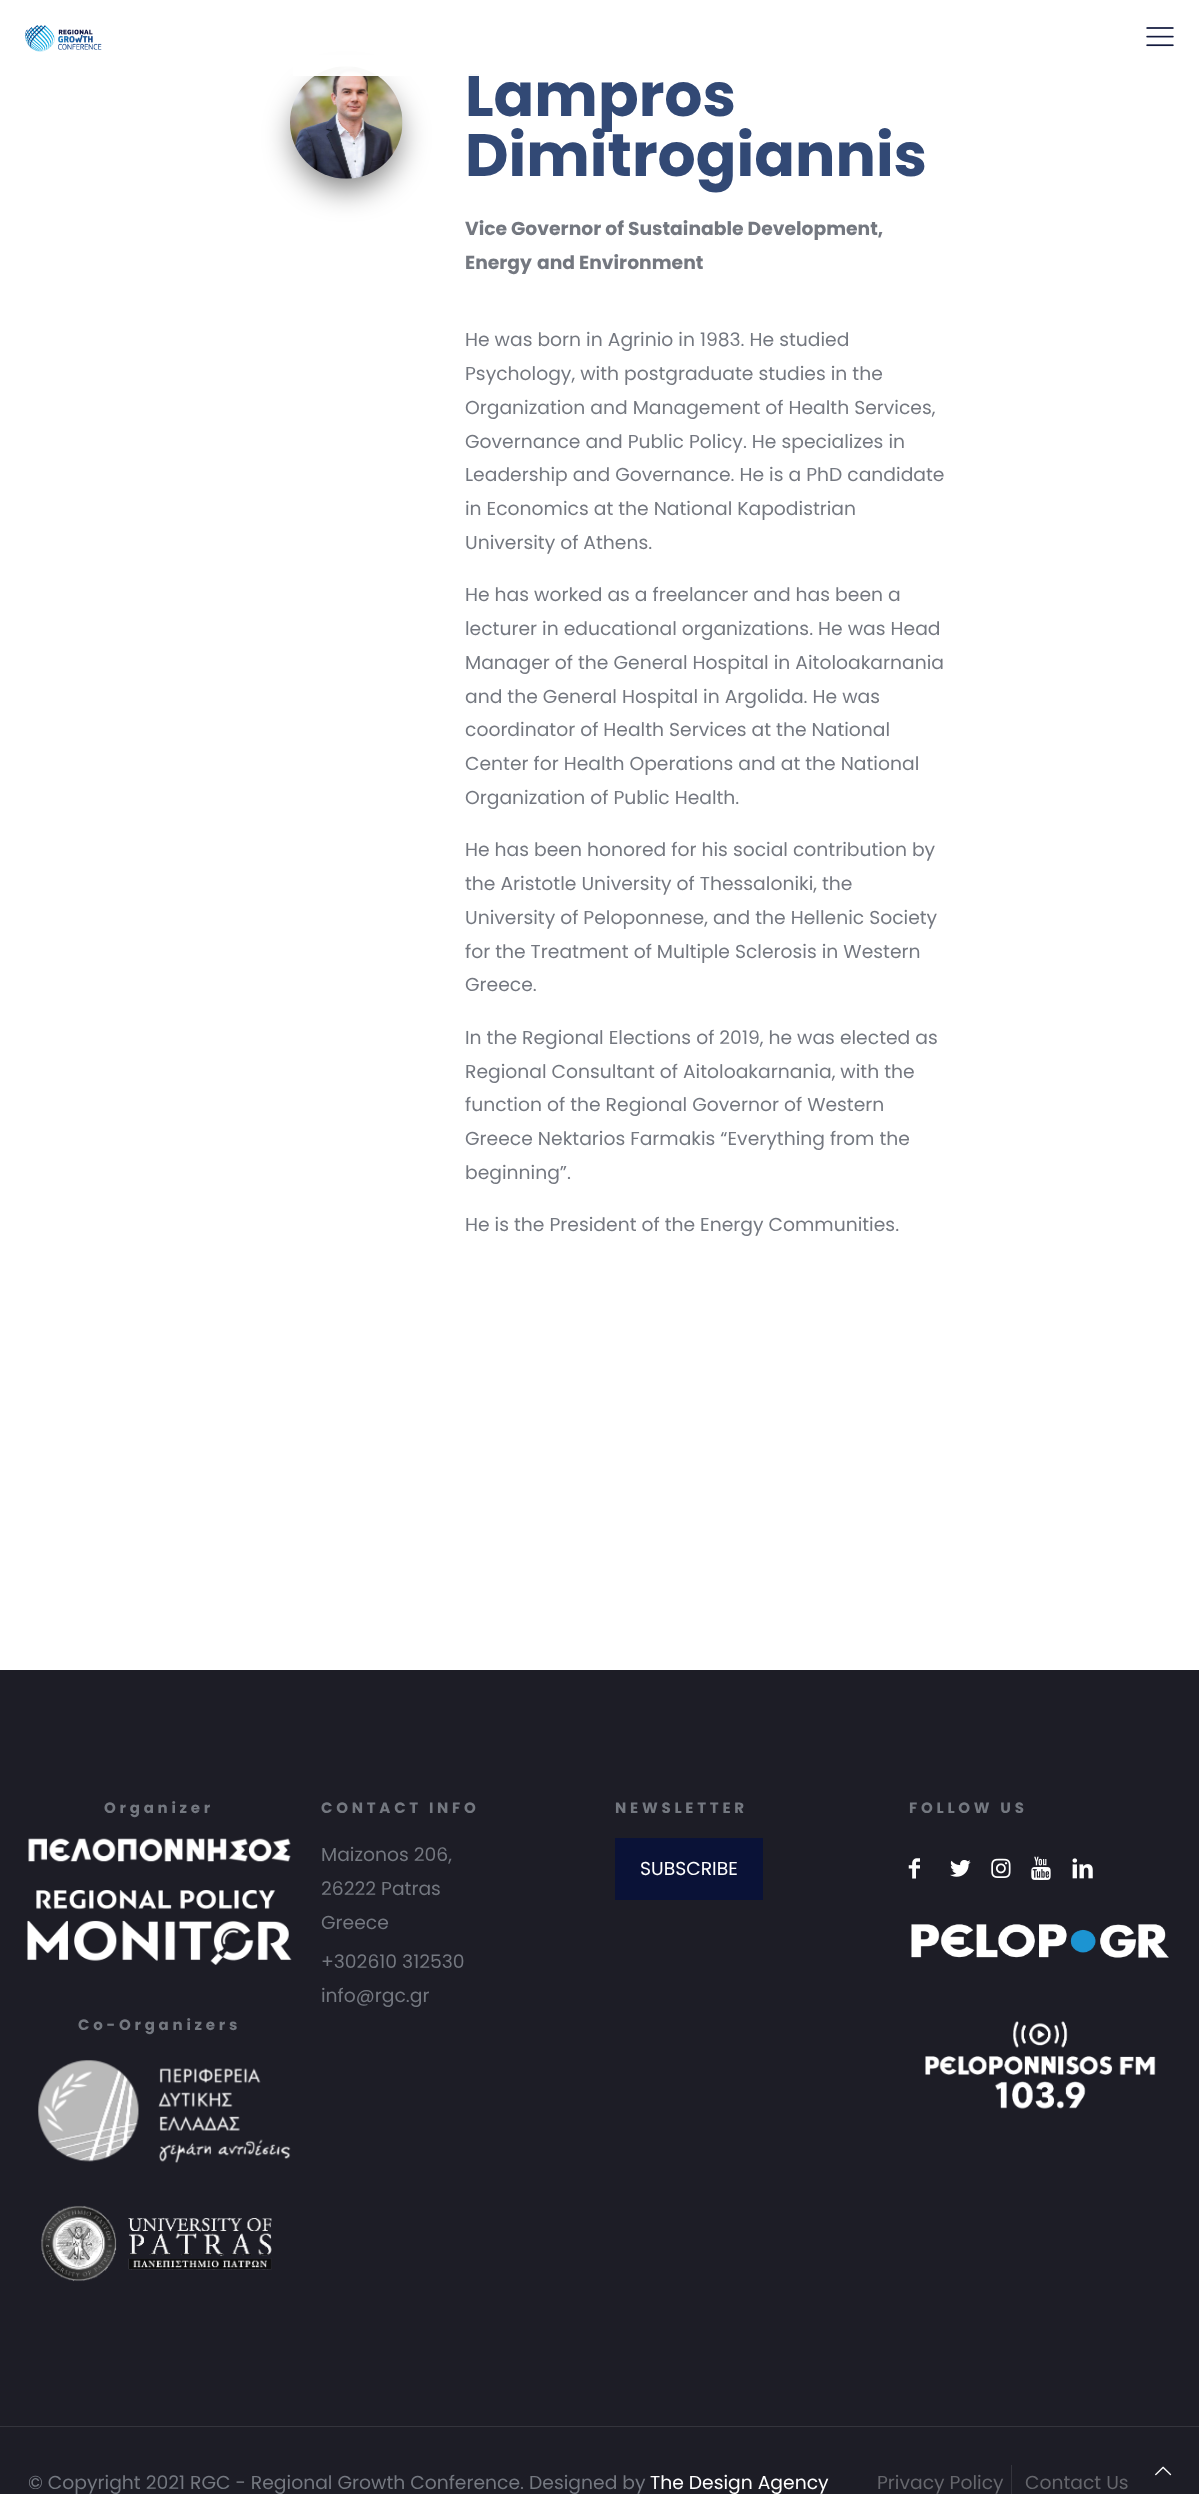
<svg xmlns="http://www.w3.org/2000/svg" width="1199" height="2494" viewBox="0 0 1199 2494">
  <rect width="100%" height="100%" fill="#fff"/>
  <image x="25" y="25" width="77" height="27" href="img/1.png"/>
  <image x="1146" y="27" width="28" height="20" href="img/2.png"/>
  <rect x="294" y="84" width="105" height="105" rx="52.5" fill="#00000080" filter="blur(15px)"/>
  <image x="290" y="66" width="113" height="113" href="img/3.png"/>
  <path d="M0 1670h1199v824H0z" fill="#1d1d26"/>
  <image x="28" y="1838" width="263" height="24" href="img/4.png"/>
  <image x="27" y="1890" width="265" height="75" href="img/5.png"/>
  <image x="38" y="2060" width="253" height="103" href="img/6.png"/>
  <image x="41" y="2205" width="231" height="77" href="img/7.png"/>
  <path d="M615 1838h148v62H615z" fill="#0a1237"/>
  <image x="908" y="1858" width="12" height="21" href="img/8.png"/>
  <image x="950" y="1860" width="21" height="17" href="img/9.png"/>
  <image x="991" y="1858" width="20" height="20" href="img/10.png"/>
  <image x="1031" y="1856" width="20" height="24" href="img/11.png"/>
  <image x="1072" y="1858" width="21" height="21" href="img/12.png"/>
  <image x="911" y="1924" width="258" height="34" href="img/13.png"/>
  <image x="925" y="2021" width="231" height="88" href="img/14.png"/>
  <path d="M0 2426h1199v1H0z" fill="#34343c"/>
  <image x="1155" y="2466" width="17" height="10" href="img/15.png"/>
  <path d="M1011 2465h1v29H1011z" fill="#34343c"/>
  <text x="465" y="116" font-family="Poppins" font-size="60" font-weight="bold" fill="#324975">Lampros</text>
  <path d="M293 55h187v21H293z" fill="#fffffff7"/>
  <text x="465" y="176" font-family="Poppins" font-size="60" font-weight="bold" fill="#324975">Dimitrogiannis</text>
  <g font-family="Poppins" font-size="18.75" font-weight="bold" fill="#747880">
    <text x="465" y="235">Vice Governor of Sustainable Development,</text>
    <text x="465" y="269">Energy</text>
    <text x="537" y="269">and Environment</text>
  </g>
  <g font-family="Poppins" font-size="18.75" fill="#747880">
    <text x="465" y="346">He was born in Agrinio in 1983. He studied</text>
    <text x="465" y="380">Psychology, with postgraduate studies in the</text>
    <text x="465" y="414">Organization and Management of Health Services,</text>
    <text x="465" y="448">Governance and Public Policy. He specializes in</text>
    <text x="465" y="481">Leadership and Governance. He is a PhD candidate</text>
    <text x="465" y="515">in Economics at the National Kapodistrian</text>
    <text x="465" y="549">University of Athens.</text>
    <text x="465" y="601">He has worked as a freelancer and has been a</text>
    <text x="465" y="635">lecturer in educational organizations. He was Head</text>
    <text x="465" y="669">Manager of the General Hospital in Aitoloakarnania</text>
    <text x="465" y="703">and the General Hospital in Argolida. He was</text>
    <text x="465" y="736">coordinator of Health Services at the National</text>
    <text x="465" y="770">Center for Health Operations and at the National</text>
    <text x="465" y="804">Organization of Public Health.</text>
    <text x="465" y="856">He has been honored for his social contribution by</text>
    <text x="465" y="890">the Aristotle University of Thessaloniki, the</text>
    <text x="465" y="924">University of Peloponnese, and the Hellenic Society</text>
    <text x="465" y="958">for the Treatment of Multiple Sclerosis in Western</text>
    <text x="465" y="991">Greece.</text>
    <text x="465" y="1044">In the Regional Elections of 2019, he was elected as</text>
    <text x="465" y="1078">Regional Consultant of Aitoloakarnania, with the</text>
    <text x="465" y="1111">function of the Regional Governor of Western</text>
    <text x="465" y="1145">Greece Nektarios Farmakis “Everything from the</text>
    <text x="465" y="1179">beginning”.</text>
    <text x="465" y="1231">He is the President of the Energy Communities.</text>
  </g>
  <g font-family="Poppins" font-size="15" font-weight="bold" letter-spacing="3.75" fill="#747880">
    <text x="104" y="1813">Organizer</text>
    <text x="78" y="2030">Co-Organizers</text>
    <text x="321" y="1813">CONTACT INFO</text>
  </g>
  <g font-family="Poppins" font-size="18.75" fill="#747880">
    <text x="321" y="1861">Maizonos 206,</text>
    <text x="321" y="1895">26222 Patras</text>
    <text x="321" y="1929">Greece</text>
    <text x="321" y="1968">+302610 312530</text>
    <text x="321" y="2002">info@rgc.gr</text>
  </g>
  <text x="615" y="1813" font-family="Poppins" font-size="15" font-weight="bold" letter-spacing="3.75" fill="#747880">NEWSLETTER</text>
  <text x="640" y="1875" font-family="Poppins" font-size="18.75" fill="#fff">SUBSCRIBE</text>
  <text x="909" y="1813" font-family="Poppins" font-size="15" font-weight="bold" letter-spacing="3.75" fill="#747880">FOLLOW US</text>
  <text x="28" y="2489" font-family="Poppins" font-size="18.75" fill="#747880">© Copyright 2021 RGC - Regional Growth Conference. Designed by</text>
  <text x="650" y="2489" font-family="Poppins" font-size="18.75" fill="#fff">The Design Agency</text>
  <g font-family="Poppins" font-size="18.75" fill="#65666c">
    <text x="877" y="2489">Privacy Policy</text>
    <text x="1025" y="2489">Contact Us</text>
  </g>
</svg>
